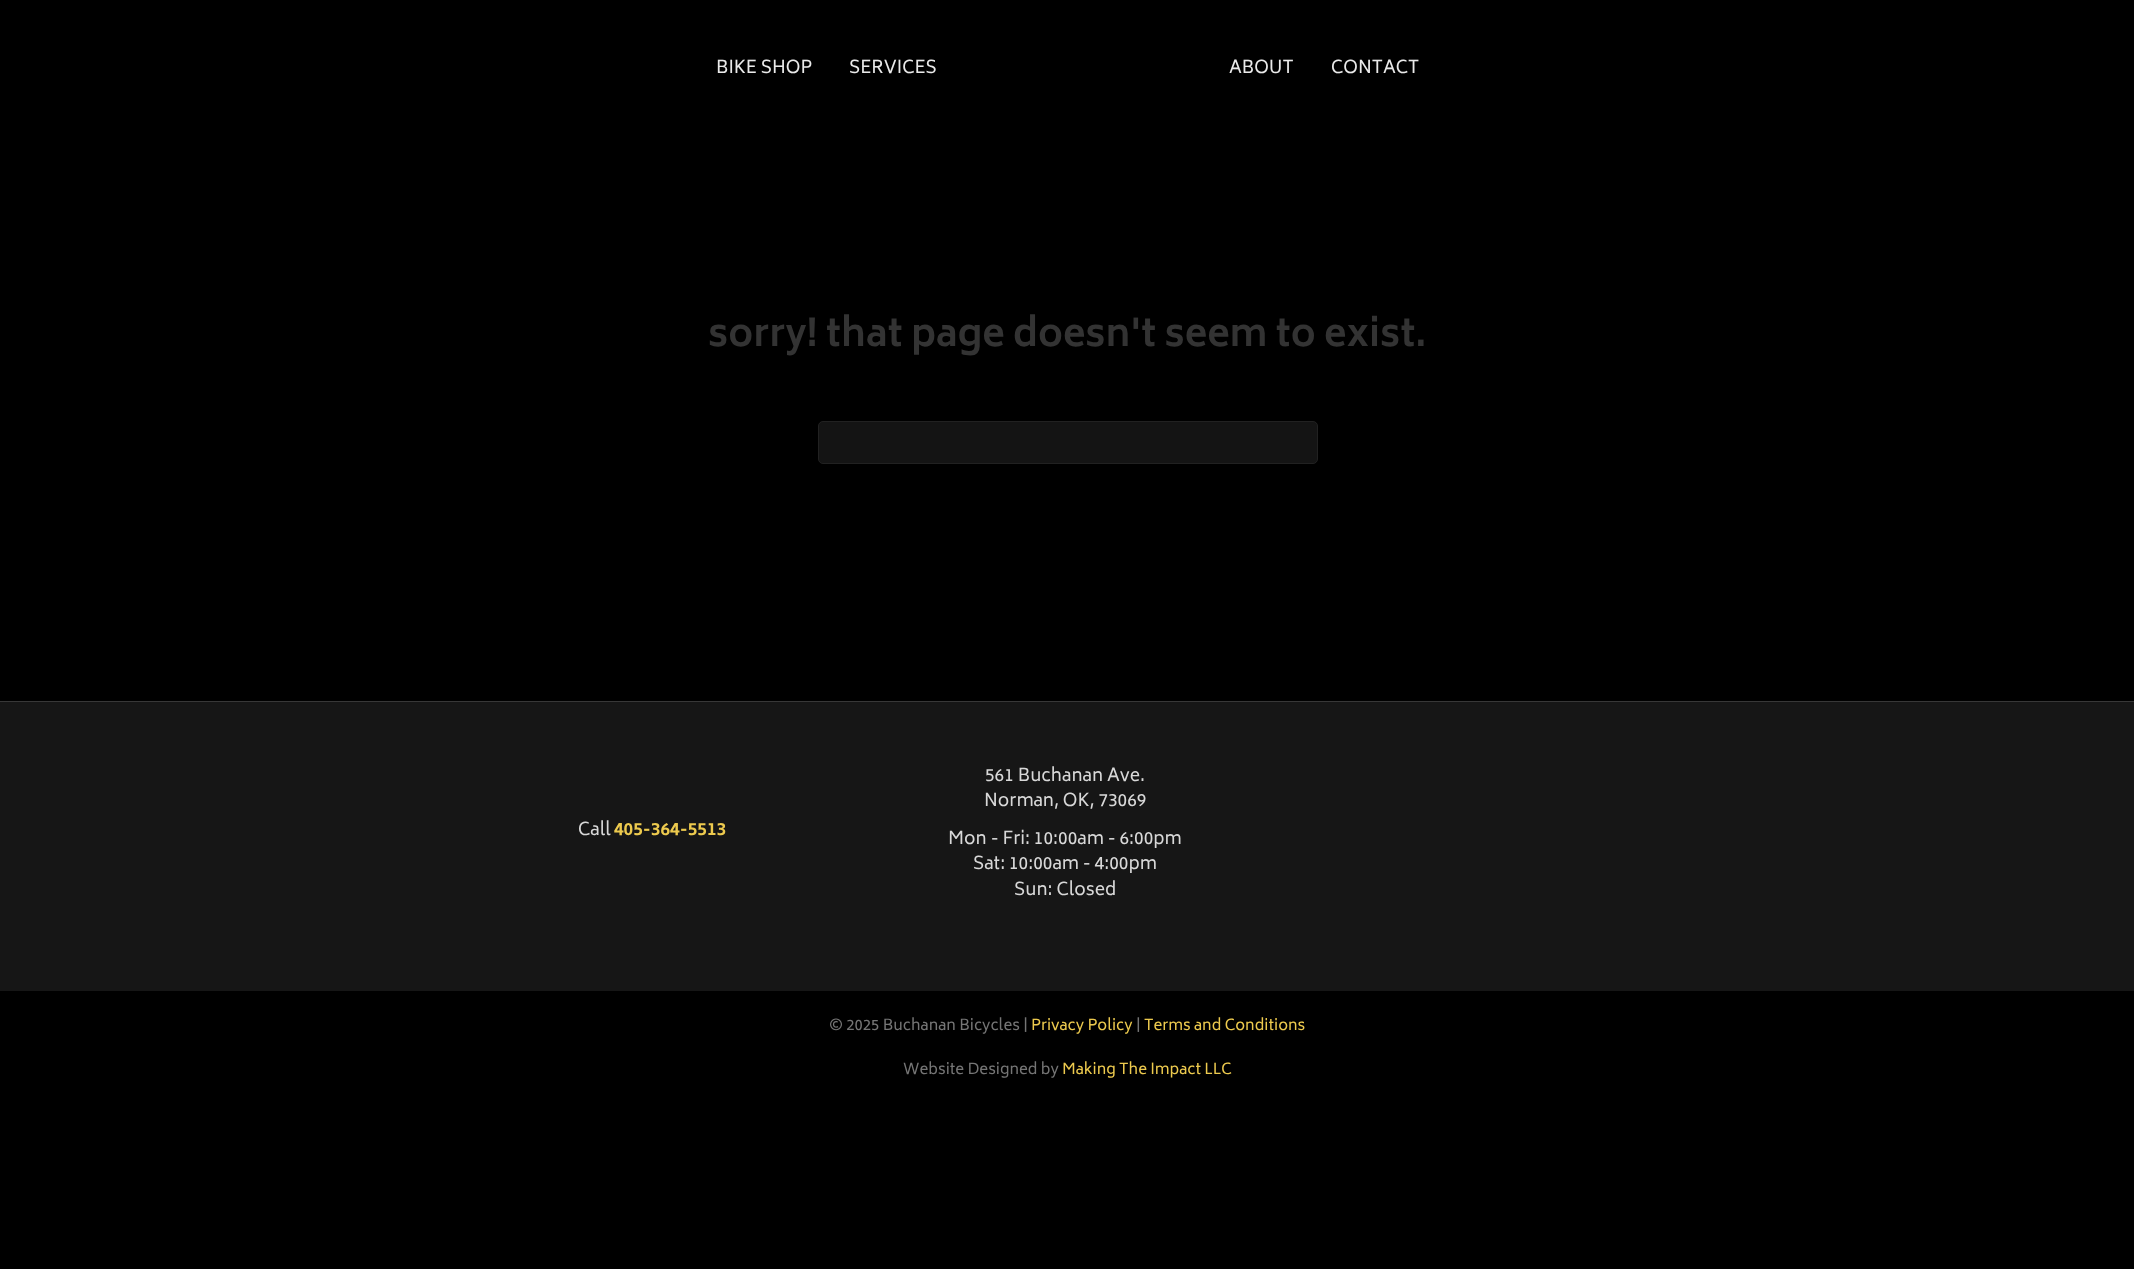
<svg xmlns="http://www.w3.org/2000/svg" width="2134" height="1269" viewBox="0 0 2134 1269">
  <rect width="100%" height="100%" fill="#000"/>
  <rect x="818.5" y="421.5" width="499" height="42" rx="4.5" fill="#141414" stroke="#212121"/>
  <path d="M0 702h2134v289H0z" fill="#161616"/>
  <path d="M0 701h2134v1H0z" fill="#373737"/>
  <g font-family="Biryani" font-size="17.5" fill="#eaeaea">
    <text x="716" y="73">BIKE SHOP</text>
    <text x="849" y="73">SERVICES</text>
    <text x="1229" y="73">ABOUT</text>
    <text x="1331" y="73">CONTACT</text>
  </g>
  <text x="708" y="346" font-family="Biryani" font-size="37.5" font-weight="bold" fill="#333">sorry! that page doesn't seem to exist.</text>
  <text x="578" y="835" font-family="Biryani" font-size="17.5" fill="#d8d8d8">Call</text>
  <text x="614" y="835" font-family="Biryani" font-size="17.5" font-weight="bold" fill="#edca4e">405-364-5513</text>
  <g font-family="Biryani" font-size="17.5" fill="#d8d8d8">
    <text x="985" y="781">561 Buchanan Ave.</text>
    <text x="984" y="806">Norman, OK, 73069</text>
    <text x="948" y="844">Mon - Fri: 10:00am - 6:00pm</text>
    <text x="973" y="869">Sat: 10:00am - 4:00pm</text>
    <text x="1014" y="895">Sun: Closed</text>
  </g>
  <text x="829" y="1030" font-family="Biryani" font-size="15" fill="#757575">© 2025 Buchanan Bicycles |</text>
  <text x="1031" y="1030" font-family="Biryani" font-size="15" fill="#edca4e">Privacy Policy</text>
  <text x="1136" y="1030" font-family="Biryani" font-size="15" fill="#757575">|</text>
  <text x="1144" y="1030" font-family="Biryani" font-size="15" fill="#edca4e">Terms and Conditions</text>
  <text x="903" y="1074" font-family="Biryani" font-size="15" fill="#757575">Website Designed by</text>
  <text x="1062" y="1074" font-family="Biryani" font-size="15" fill="#edca4e">Making The Impact LLC</text>
</svg>
